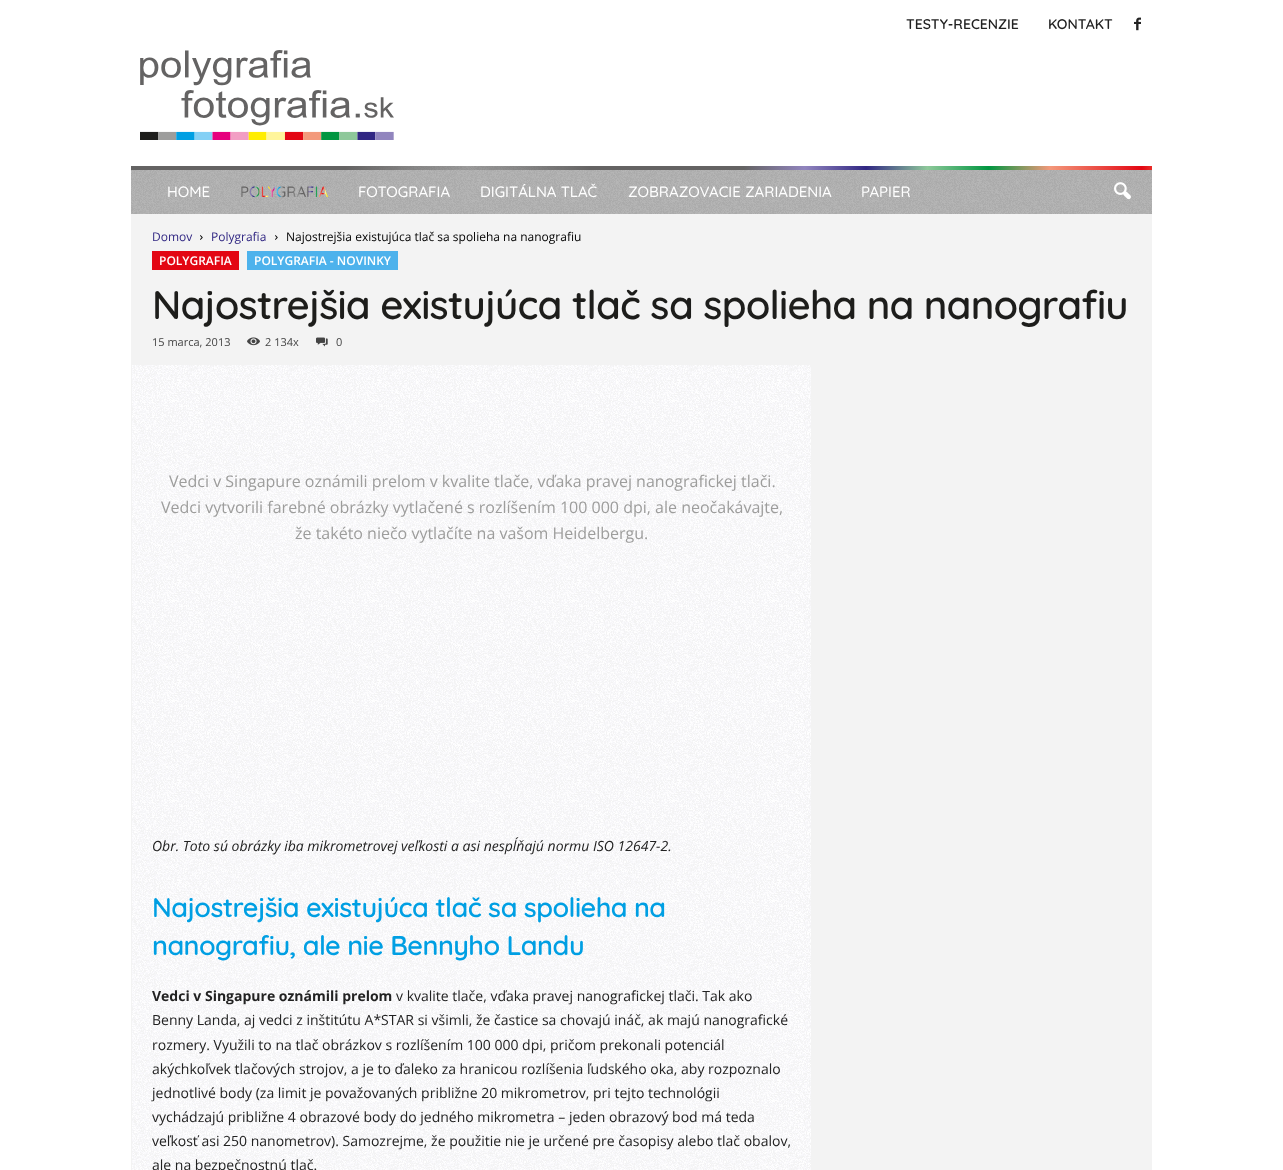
<svg xmlns="http://www.w3.org/2000/svg" width="1283" height="1170" viewBox="0 0 1283 1170">
  <defs>
    <linearGradient id="g1" gradientUnits="userSpaceOnUse" x1="343" y1="192" x2="225" y2="192"><stop offset="0" stop-color="#000"/><stop offset="0.02" stop-color="#9d9d9c"/><stop offset="0.04" stop-color="#009fe3"/><stop offset="0.07" stop-color="#84d0f5"/><stop offset="0.09" stop-color="#e6007e"/><stop offset="0.11" stop-color="#f29ec4"/><stop offset="0.13" stop-color="#ffed00"/><stop offset="0.15" stop-color="#fff59b"/><stop offset="0.17" stop-color="#e30613"/><stop offset="0.2" stop-color="#f3997b"/><stop offset="0.22" stop-color="#009640"/><stop offset="0.24" stop-color="#8ec89a"/><stop offset="0.26" stop-color="#312783"/><stop offset="0.28" stop-color="#9185be"/><stop offset="0.3" stop-color="#646363"/><stop offset="0.35" stop-color="#646363"/><stop offset="0.37" stop-color="#828282"/><stop offset="0.39" stop-color="#999"/><stop offset="0.41" stop-color="#828282"/><stop offset="0.43" stop-color="#646363"/><stop offset="0.5" stop-color="#646363"/><stop offset="0.52" stop-color="#9d9d9c"/><stop offset="0.54" stop-color="#009fe3"/><stop offset="0.57" stop-color="#84d0f5"/><stop offset="0.59" stop-color="#e6007e"/><stop offset="0.61" stop-color="#f29ec4"/><stop offset="0.63" stop-color="#ffed00"/><stop offset="0.65" stop-color="#fff59b"/><stop offset="0.67" stop-color="#e30613"/><stop offset="0.7" stop-color="#f3997b"/><stop offset="0.72" stop-color="#009640"/><stop offset="0.74" stop-color="#8ec89a"/><stop offset="0.76" stop-color="#312783"/><stop offset="0.78" stop-color="#9185be"/><stop offset="0.8" stop-color="#646363"/><stop offset="0.85" stop-color="#646363"/><stop offset="0.87" stop-color="#828282"/><stop offset="0.89" stop-color="#999"/><stop offset="0.91" stop-color="#828282"/><stop offset="0.93" stop-color="#646363"/><stop offset="1" stop-color="#646363"/></linearGradient>
    <linearGradient id="g2" gradientUnits="userSpaceOnUse" x1="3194" y1="178" x2="131" y2="178"><stop offset="0" stop-color="#646363"/><stop offset="0.02" stop-color="#9d9d9c"/><stop offset="0.04" stop-color="#009fe3"/><stop offset="0.07" stop-color="#84d0f5"/><stop offset="0.09" stop-color="#e6007e"/><stop offset="0.11" stop-color="#f29ec4"/><stop offset="0.13" stop-color="#ffed00"/><stop offset="0.15" stop-color="#fff59b"/><stop offset="0.17" stop-color="#e30613"/><stop offset="0.2" stop-color="#f3997b"/><stop offset="0.22" stop-color="#009640"/><stop offset="0.24" stop-color="#8ec89a"/><stop offset="0.26" stop-color="#312783"/><stop offset="0.28" stop-color="#9185be"/><stop offset="0.3" stop-color="#646363"/><stop offset="0.35" stop-color="#646363"/><stop offset="0.37" stop-color="#646363" stop-opacity="0.6"/><stop offset="0.39" stop-color="#646363" stop-opacity="0.3"/><stop offset="0.41" stop-color="#646363" stop-opacity="0.6"/><stop offset="0.43" stop-color="#646363"/><stop offset="0.5" stop-color="#646363"/><stop offset="0.52" stop-color="#9d9d9c"/><stop offset="0.54" stop-color="#009fe3"/><stop offset="0.57" stop-color="#84d0f5"/><stop offset="0.59" stop-color="#e6007e"/><stop offset="0.61" stop-color="#f29ec4"/><stop offset="0.63" stop-color="#ffed00"/><stop offset="0.65" stop-color="#fff59b"/><stop offset="0.67" stop-color="#e30613"/><stop offset="0.7" stop-color="#f3997b"/><stop offset="0.72" stop-color="#009640"/><stop offset="0.74" stop-color="#8ec89a"/><stop offset="0.76" stop-color="#312783"/><stop offset="0.78" stop-color="#9185be"/><stop offset="0.8" stop-color="#646363"/><stop offset="0.85" stop-color="#646363"/><stop offset="0.87" stop-color="#646363" stop-opacity="0.6"/><stop offset="0.89" stop-color="#646363" stop-opacity="0.3"/><stop offset="0.91" stop-color="#646363" stop-opacity="0.6"/><stop offset="0.93" stop-color="#646363"/><stop offset="1" stop-color="#646363"/></linearGradient>
  </defs>
  <rect width="100%" height="100%" fill="#fff"/>
  <image x="1134" y="17" width="7" height="14" href="img/1.png"/>
  <image x="140" y="50" width="254" height="90" href="img/2.png"/>
  <path d="M131 166h1021v48H131z" fill="#b3b3b3"/>
  <image x="131" y="166" width="1021" height="48" href="img/3.png"/>
  <path d="M131 166h1021v4H131z" fill="url(#g2)"/>
  <image x="1114" y="182" width="17" height="18" href="img/4.png"/>
  <path d="M131 214h1021v956H131z" fill="#f3f3f3"/>
  <image x="200" y="235" width="3" height="5" href="img/5.png"/>
  <image x="275" y="235" width="3" height="5" href="img/5.png"/>
  <path d="M152 251h87v19H152z" fill="#e30613"/>
  <path d="M247 251h151v19H247z" fill="#4db2ec"/>
  <image x="247" y="337" width="13" height="9" href="img/6.png"/>
  <image x="316" y="337" width="12" height="10" href="img/7.png"/>
  <path d="M132 365h679v805H132z" fill="#fff"/>
  <image x="132" y="365" width="679" height="805" href="img/8.png"/>
  <g font-family="Quicksand" font-size="14" font-weight="600" fill="#222">
    <text x="906" y="29">TESTY-RECENZIE</text>
    <text x="1048" y="29">KONTAKT</text>
  </g>
  <text x="167" y="197" font-family="Quicksand" font-size="15" font-weight="500" fill="#fff">HOME</text>
  <text x="240" y="197" font-family="Quicksand" font-size="15" font-weight="500" fill="url(#g1)">POLYGRAFIA</text>
  <g font-family="Quicksand" font-size="15" font-weight="500" fill="#fff">
    <text x="358" y="197">FOTOGRAFIA</text>
    <text x="480" y="197">DIGITÁLNA TLAČ</text>
    <text x="628" y="197">ZOBRAZOVACIE ZARIADENIA</text>
    <text x="861" y="197">PAPIER</text>
  </g>
  <g font-family="Open Sans" font-size="12" fill="#312783">
    <text x="152" y="241">Domov</text>
    <text x="211" y="241">Polygrafia</text>
  </g>
  <text x="286" y="241" font-family="Open Sans" font-size="12" fill="#000">Najostrejšia existujúca tlač sa spolieha na nanografiu</text>
  <g font-family="Open Sans" font-size="12" font-weight="600" fill="#fff">
    <text x="159" y="265">POLYGRAFIA</text>
    <text x="254" y="265">POLYGRAFIA - NOVINKY</text>
  </g>
  <text x="152" y="319" font-family="Quicksand" font-size="40" font-weight="600" letter-spacing="-0.8" fill="#1d1d1b">Najostrejšia existujúca tlač sa spolieha na nanografiu</text>
  <g font-family="Open Sans" font-size="11" fill="#444">
    <text x="152" y="346">15 marca, 2013</text>
    <text x="265" y="346">2 134x</text>
    <text x="336" y="346">0</text>
  </g>
  <g font-family="Open Sans" font-size="16" fill="#9d9d9c">
    <text x="169" y="487">Vedci v Singapure oznámili prelom v kvalite tlače, vďaka pravej nanografickej tlači.</text>
    <text x="161" y="513">Vedci vytvorili farebné obrázky vytlačené s rozlíšením 100 000 dpi, ale neočakávajte,</text>
    <text x="295" y="539">že takéto niečo vytlačíte na vašom Heidelbergu.</text>
  </g>
  <text x="152" y="851" font-family="Open Sans" font-size="14" font-style="italic" fill="#222">Obr. Toto sú obrázky iba mikrometrovej veľkosti a asi nespĺňajú normu ISO 12647-2.</text>
  <g font-family="Quicksand" font-size="27" font-weight="600" letter-spacing="-0.55" fill="#009fe3">
    <text x="152" y="917">Najostrejšia existujúca tlač sa spolieha na</text>
    <text x="152" y="955">nanografiu, ale nie Bennyho Landu</text>
  </g>
  <text x="152" y="1001" font-family="Open Sans" font-size="14" font-weight="bold" fill="#222">Vedci v Singapure oznámili prelom</text>
  <g font-family="Open Sans" font-size="14" fill="#222">
    <text x="396" y="1001">v kvalite tlače, vďaka pravej nanografickej tlači. Tak ako</text>
    <text x="152" y="1025">Benny Landa, aj vedci z inštitútu A*STAR si všimli, že častice sa chovajú ináč, ak majú nanografické</text>
    <text x="152" y="1050">rozmery. Využili to na tlač obrázkov s rozlíšením 100 000 dpi, pričom prekonali potenciál</text>
    <text x="152" y="1074">akýchkoľvek tlačových strojov, a je to ďaleko za hranicou rozlíšenia ľudského oka, aby rozpoznalo</text>
    <text x="152" y="1098">jednotlivé body (za limit je považovaných približne 20 mikrometrov, pri tejto technológii</text>
    <text x="152" y="1122">vychádzajú približne 4 obrazové body do jedného mikrometra – jeden obrazový bod má teda</text>
    <text x="152" y="1146">veľkosť asi 250 nanometrov). Samozrejme, že použitie nie je určené pre časopisy alebo tlač obalov,</text>
    <text x="152" y="1170">ale na bezpečnostnú tlač.</text>
  </g>
</svg>
